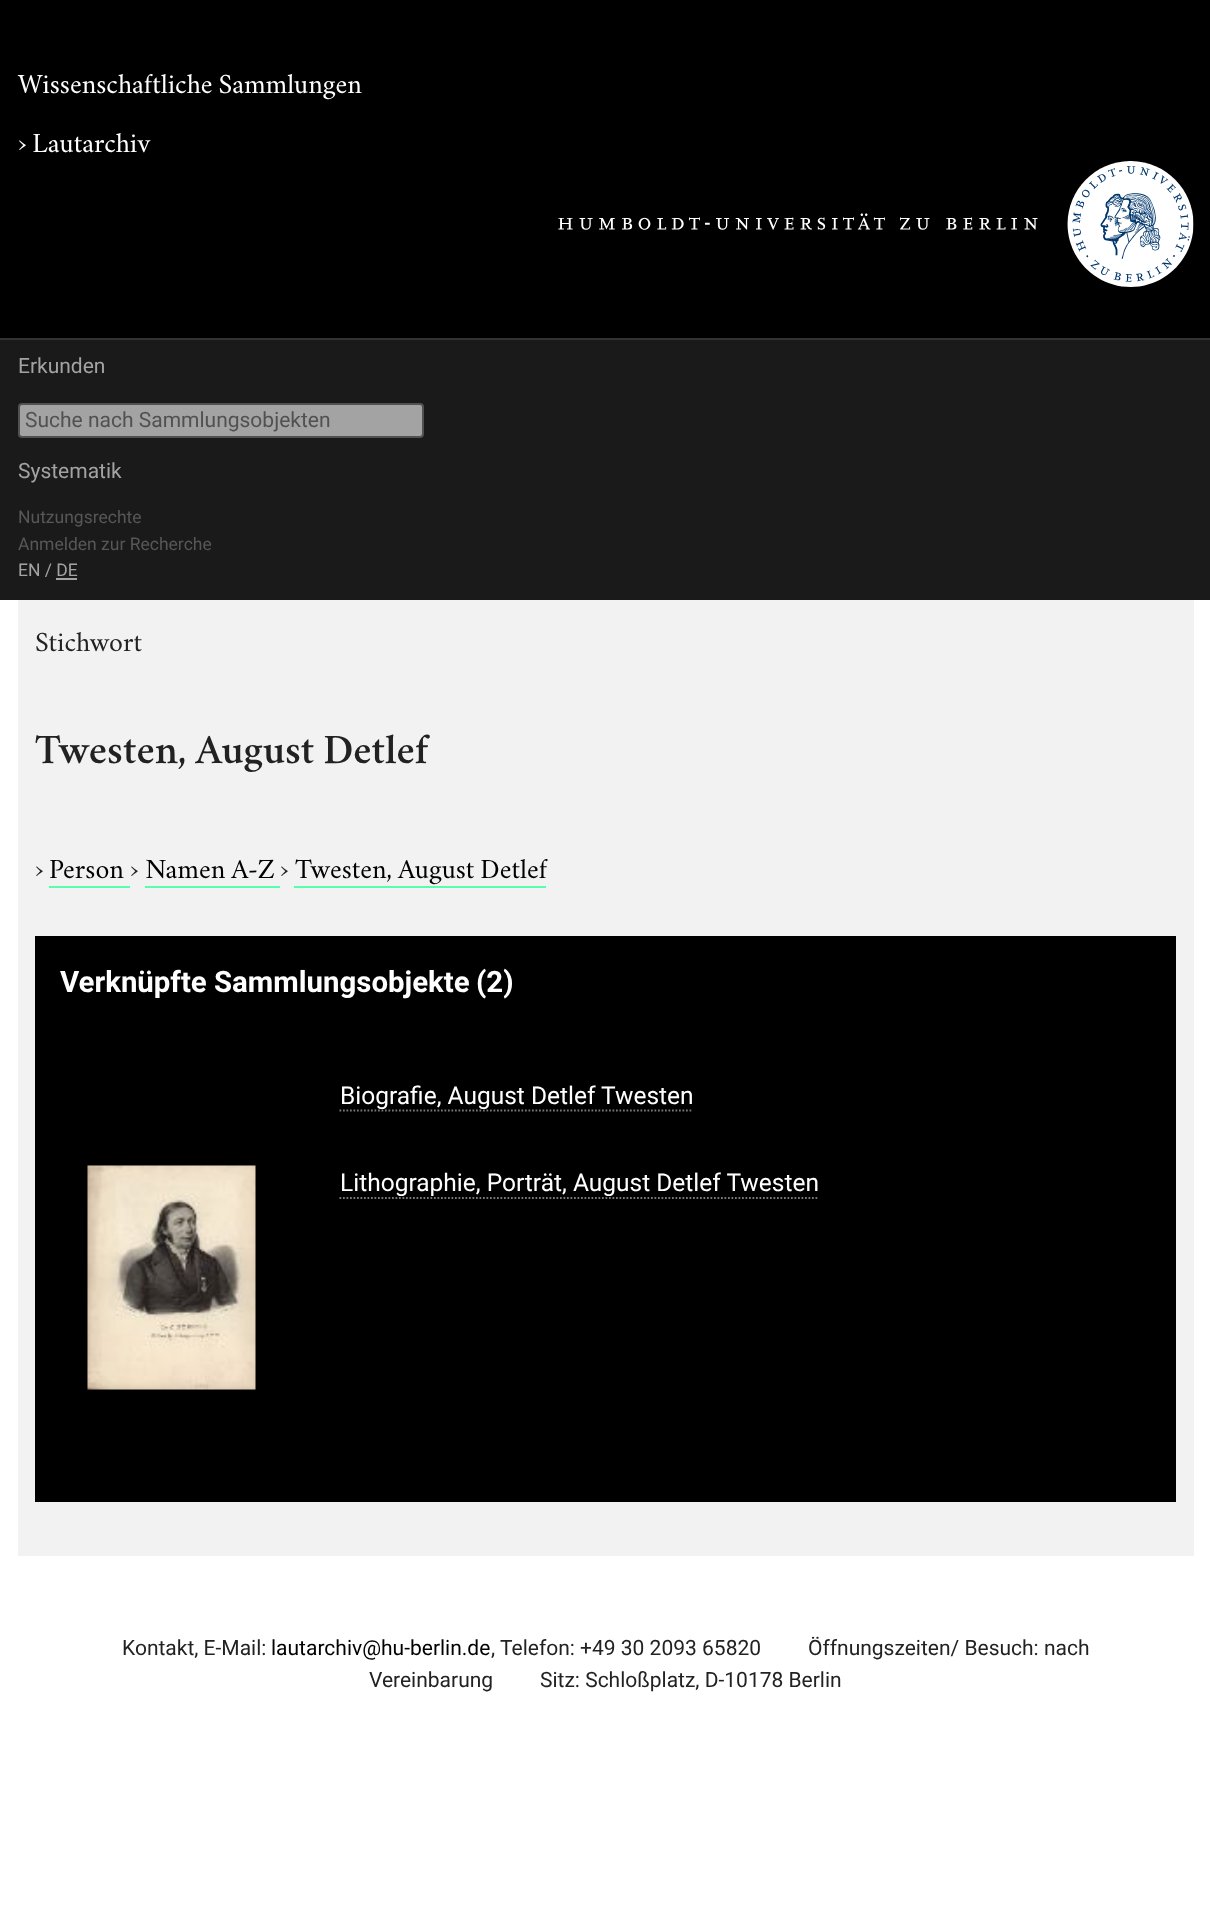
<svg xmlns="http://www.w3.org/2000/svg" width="1210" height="1912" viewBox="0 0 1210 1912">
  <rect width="100%" height="100%" fill="#fff"/>
  <path d="M0 0h1210v338H0z" fill="#000"/>
  <image x="558" y="161" width="636" height="126" href="img/1.png"/>
  <path d="M0 340h1210v260H0z" fill="#1a1a1a"/>
  <path d="M0 338h1210v2H0z" fill="#333"/>
  <rect x="19" y="404" width="404" height="33" rx="3" fill="#a3a3a3" stroke="#515151" stroke-width="2"/>
  <path d="M56 578h21v2H56z" fill="#a3a3a3"/>
  <path d="M18 600h1176v956H18z" fill="#f2f2f2"/>
  <path d="M49 886h81v2H49z" fill="#57ffac"/>
  <path d="M145 886h135v2H145z" fill="#57ffac"/>
  <path d="M294 886h252v2H294z" fill="#57ffac"/>
  <path d="M35 936h1141v566H35z" fill="#000"/>
  <path d="M339.5 1110.5H693" fill="none" stroke="#787878" stroke-width="1.8" stroke-dasharray="1.75 1.75"/>
  <image x="87" y="1165" width="169" height="225" href="img/2.png"/>
  <path d="M339.5 1198H819" fill="none" stroke="#787878" stroke-width="1.8" stroke-dasharray="1.75 1.75"/>
  <g font-family="Crimson Text" font-size="28" fill="#fff">
    <text x="18" y="93">Wissenschaftliche Sammlungen</text>
    <text x="18" y="152">› Lautarchiv</text>
  </g>
  <text x="18" y="373" font-family="Roboto" font-size="21" fill="#a3a3a3">Erkunden</text>
  <text x="25" y="427" font-family="Roboto" font-size="21" fill="#515151">Suche nach Sammlungsobjekten</text>
  <text x="18" y="478" font-family="Roboto" font-size="21" fill="#a3a3a3">Systematik</text>
  <g font-family="Roboto" font-size="17.5" fill="#575757">
    <text x="18" y="523">Nutzungsrechte</text>
    <text x="18" y="550">Anmelden zur Recherche</text>
  </g>
  <text x="18" y="576" font-family="Roboto" font-size="17.5" fill="#a3a3a3">EN / DE</text>
  <text x="35" y="651" font-family="Crimson Text" font-size="28" fill="#222">Stichwort</text>
  <text x="35" y="763" font-family="Crimson Text" font-size="42" font-weight="600" fill="#222">Twesten, August Detlef</text>
  <text x="35" y="878" font-family="Crimson Text" font-size="28" fill="#222">›</text>
  <text x="49" y="878" font-family="Crimson Text" font-size="28" fill="#000">Person</text>
  <text x="130" y="878" font-family="Crimson Text" font-size="28" fill="#222">›</text>
  <text x="145" y="878" font-family="Crimson Text" font-size="28" fill="#000">Namen A-Z</text>
  <text x="280" y="878" font-family="Crimson Text" font-size="28" fill="#222">›</text>
  <text x="295" y="878" font-family="Crimson Text" font-size="28" fill="#000">Twesten, August Detlef</text>
  <g font-family="Roboto" font-size="29.4" font-weight="bold" fill="#fff">
    <text x="60" y="992">Verknüpfte Sammlungsobjekte</text>
    <text x="476" y="992">(2)</text>
  </g>
  <g font-family="Roboto" font-size="24.5" fill="#fff">
    <text x="340" y="1104">Biografie, August Detlef Twesten</text>
    <text x="340" y="1191">Lithographie, Porträt, August Detlef Twesten</text>
  </g>
  <text x="122" y="1655" font-family="Roboto" font-size="21" fill="#222">Kontakt, E-Mail:</text>
  <text x="271" y="1655" font-family="Roboto" font-size="21" fill="#000">lautarchiv@hu-berlin.de</text>
  <g font-family="Roboto" font-size="21" fill="#222">
    <text x="491" y="1655">,</text>
    <text x="500" y="1655">Telefon: +49 30 2093 65820</text>
    <text x="808" y="1655">Öffnungszeiten/ Besuch: nach</text>
    <text x="369" y="1687">Vereinbarung</text>
    <text x="540" y="1687">Sitz: Schloßplatz, D-10178 Berlin</text>
  </g>
</svg>
